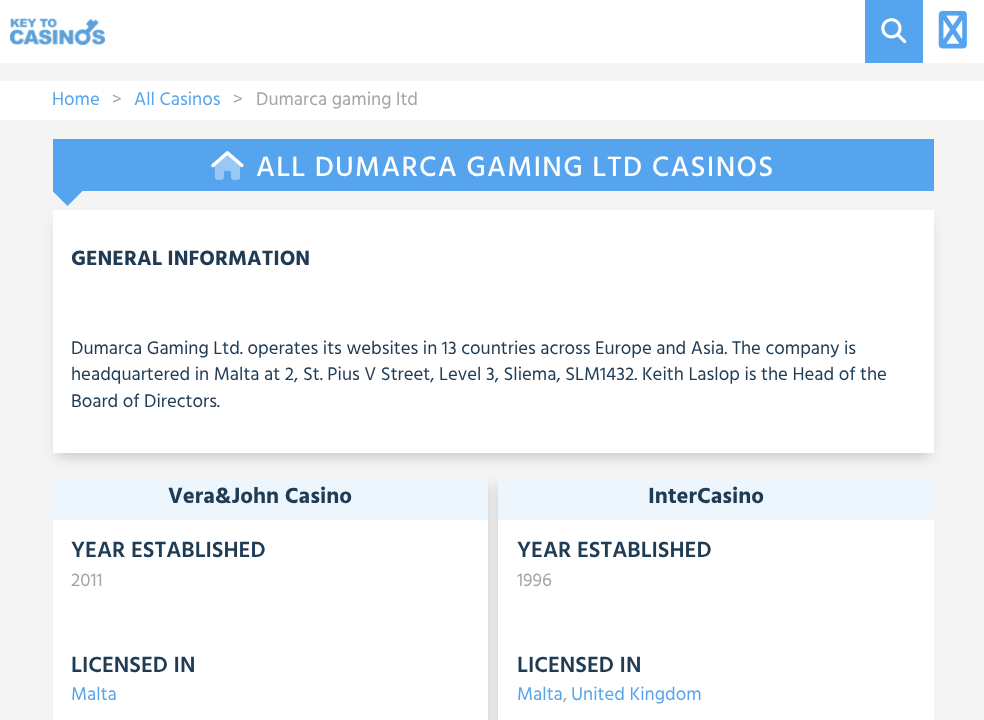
<svg xmlns="http://www.w3.org/2000/svg" width="984" height="720" viewBox="0 0 984 720">
  <defs>
    <clipPath id="clip1"><path d="M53 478h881v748H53z"/></clipPath>
  </defs>
  <rect width="100%" height="100%" fill="#f4f4f4"/>
  <path d="M0 0h984v63H0z" fill="#fff"/>
  <image x="10" y="18" width="95" height="27" href="img/1.png"/>
  <path d="M865 0h58v63H865z" fill="#55a4ed"/>
  <image x="881" y="18" width="26" height="26" href="img/2.png"/>
  <image x="938" y="10" width="29" height="39" href="img/3.png"/>
  <path d="M0 81h984v39H0z" fill="#fff"/>
  <path d="M53 139h881v52H53z" fill="#55a4ed"/>
  <image x="211" y="151" width="33" height="17" href="img/4.png"/>
  <image x="214" y="155" width="26" height="25" href="img/5.png"/>
  <path d="M58 224h871v232H58z" fill="#00000033" filter="blur(7px)"/>
  <path d="M52.5 191H82.5L67.5 206Z" fill="#55a4ed"/>
  <path d="M53 210h881v243H53z" fill="#fff"/>
  <g clip-path="url(#clip1)">
    <path d="M53 484h435v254H53z" fill="#00000026" filter="blur(6px)"/>
  </g>
  <path d="M53 520h435v200H53z" fill="#fff"/>
  <path d="M53 478h435v42H53z" fill="#edf6fd"/>
  <g clip-path="url(#clip1)">
    <path d="M498 484h436v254H498z" fill="#00000026" filter="blur(6px)"/>
  </g>
  <path d="M498 520h436v200H498z" fill="#fff"/>
  <path d="M498 478h436v42H498z" fill="#edf6fd"/>
  <text x="52" y="105" font-family="Hind" font-size="18.75" fill="#55a4ed">Home</text>
  <text x="112" y="105" font-family="Hind" font-size="18.75" fill="#a3a4a6">&gt;</text>
  <text x="134" y="105" font-family="Hind" font-size="18.75" fill="#55a4ed">All Casinos</text>
  <g font-family="Hind" font-size="18.75" fill="#a3a4a6">
    <text x="233" y="105">&gt;</text>
    <text x="256" y="105">Dumarca gaming ltd</text>
  </g>
  <text x="256" y="176" font-family="Hind" font-size="28.75" font-weight="500" letter-spacing="1.25" fill="#fff">ALL DUMARCA GAMING LTD CASINOS</text>
  <text x="71" y="265" font-family="Hind" font-size="21.25" font-weight="bold" fill="#203c55">GENERAL INFORMATION</text>
  <g font-family="Hind" font-size="18.75" fill="#203c55">
    <text x="71" y="354">Dumarca Gaming Ltd. operates its websites in 13 countries across Europe and Asia. The company is</text>
    <text x="71" y="380">headquartered in Malta at 2, St. Pius V Street, Level 3, Sliema, SLM1432. Keith Laslop is the Head of the</text>
    <text x="71" y="407">Board of Directors.</text>
  </g>
  <text x="168" y="503" font-family="Hind" font-size="22.5" font-weight="bold" fill="#203c55">Vera&amp;John Casino</text>
  <text x="71" y="557" font-family="Hind" font-size="22.5" font-weight="600" fill="#203c55">YEAR ESTABLISHED</text>
  <text x="71" y="586" font-family="Hind" font-size="18.75" fill="#a3a4a6">2011</text>
  <text x="71" y="672" font-family="Hind" font-size="22.5" font-weight="600" fill="#203c55">LICENSED IN</text>
  <text x="71" y="700" font-family="Hind" font-size="18.75" fill="#55a4ed">Malta</text>
  <text x="648" y="503" font-family="Hind" font-size="22.5" font-weight="bold" fill="#203c55">InterCasino</text>
  <text x="517" y="557" font-family="Hind" font-size="22.5" font-weight="600" fill="#203c55">YEAR ESTABLISHED</text>
  <text x="517" y="586" font-family="Hind" font-size="18.75" fill="#a3a4a6">1996</text>
  <text x="517" y="672" font-family="Hind" font-size="22.5" font-weight="600" fill="#203c55">LICENSED IN</text>
  <text x="517" y="700" font-family="Hind" font-size="18.75" fill="#55a4ed">Malta</text>
  <text x="563" y="700" font-family="Hind" font-size="18.75" fill="#a3a4a6">,</text>
  <text x="571" y="700" font-family="Hind" font-size="18.75" fill="#55a4ed">United Kingdom</text>
</svg>
